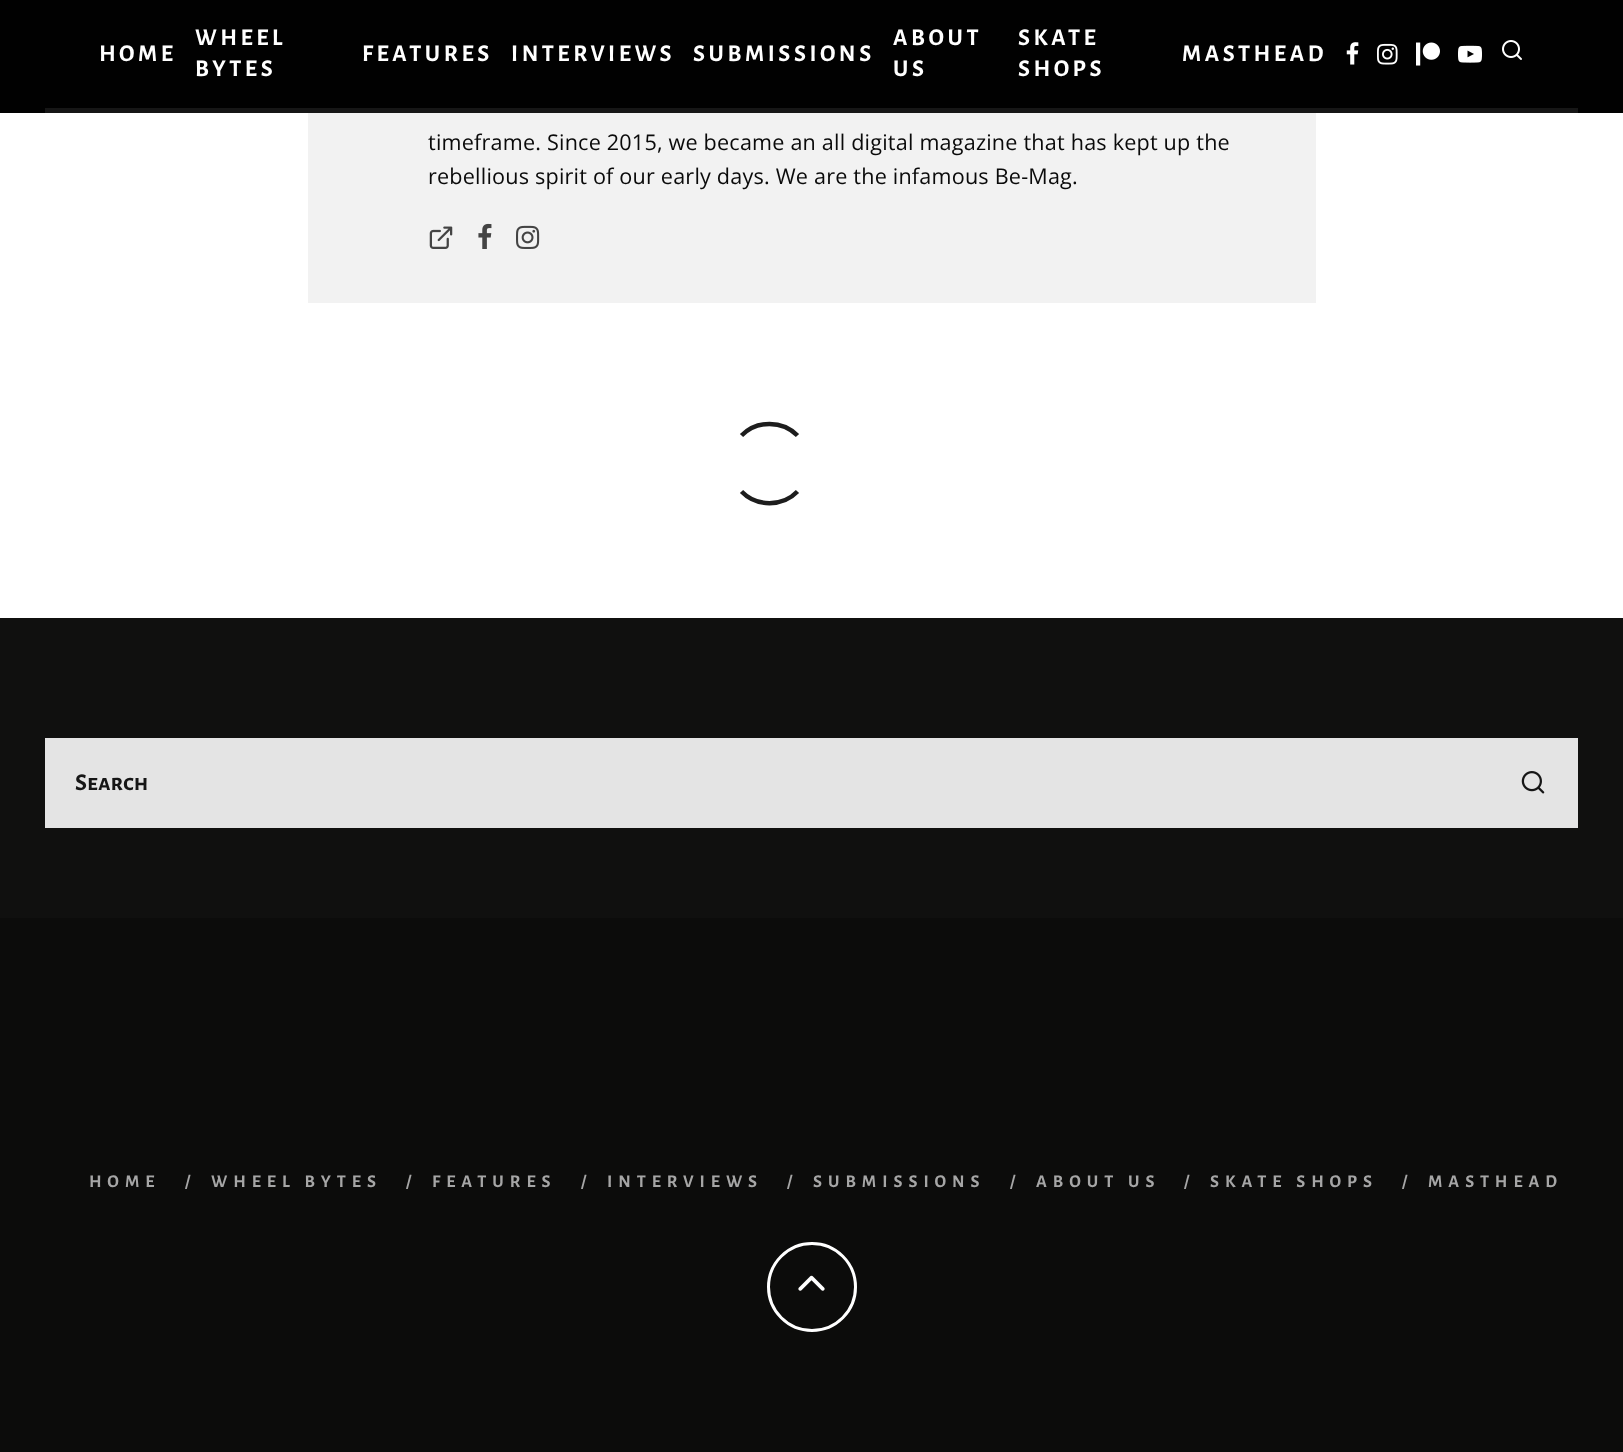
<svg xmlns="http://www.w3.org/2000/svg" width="1623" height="1452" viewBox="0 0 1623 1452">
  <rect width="100%" height="100%" fill="#fff"/>
  <path d="M0 0h1623v113H0z" fill="#010101"/>
  <path d="M45 108h1533v5H45z" fill="#161616"/>
  <image x="1346" y="42" width="13" height="23" href="img/1.png"/>
  <image x="1377" y="43" width="21" height="22" href="img/2.png"/>
  <image x="1416" y="42" width="24" height="24" href="img/3.png"/>
  <image x="1458" y="45" width="24" height="18" href="img/4.png"/>
  <image x="1502" y="40" width="20" height="20" href="img/5.png"/>
  <path d="M308 113h1008v190H308z" fill="#f2f2f2"/>
  <image x="429" y="226" width="24" height="23" href="img/6.png"/>
  <image x="478" y="223" width="14" height="26" href="img/7.png"/>
  <image x="516" y="225" width="24" height="24" href="img/8.png"/>
  <path d="M741.5 435.5C756.5 420 782.5 420 797.5 435.5" fill="none" stroke="#1d1d1d" stroke-width="4.5"/>
  <path d="M797.5 491.5C782.5 507 756.5 507 741.5 491.5" fill="none" stroke="#1d1d1d" stroke-width="4.5"/>
  <path d="M0 618h1623v300H0z" fill="#10100f"/>
  <path d="M45 738h1533v90H45z" fill="#e4e4e4"/>
  <image x="1521" y="771" width="24" height="23" href="img/9.png"/>
  <path d="M0 918h1623v534H0z" fill="#0c0c0b"/>
  <circle cx="812" cy="1287" r="43.5" fill="none" stroke="#fff" stroke-width="3"/>
  <image x="798" y="1275" width="27" height="16" href="img/10.png"/>
  <g font-family="Alegreya Sans SC" font-size="24" font-weight="bold" letter-spacing="3.6" fill="#fff">
    <text x="99" y="61">HOME</text>
    <text x="195" y="45">WHEEL</text>
    <text x="195" y="76">BYTES</text>
    <text x="362" y="61">FEATURES</text>
    <text x="511" y="61">INTERVIEWS</text>
    <text x="693" y="61">SUBMISSIONS</text>
    <text x="893" y="45">ABOUT</text>
    <text x="893" y="76">US</text>
    <text x="1018" y="45">SKATE</text>
    <text x="1018" y="76">SHOPS</text>
    <text x="1182" y="61">MASTHEAD</text>
  </g>
  <g font-family="Open Sans" font-size="21.6" letter-spacing="0.2" fill="#0a0a0a">
    <text x="428" y="150">timeframe. Since 2015, we became an all digital magazine that has kept up the</text>
    <text x="428" y="184">rebellious spirit of our early days. We are the infamous Be-Mag.</text>
  </g>
  <text x="75" y="790" font-family="Alegreya Sans SC" font-size="24" font-weight="bold" fill="#161616">Search</text>
  <g font-family="Alegreya Sans SC" font-size="18" font-weight="bold" letter-spacing="6" fill="#a6a6a6">
    <text x="89" y="1187">HOME</text>
    <text x="185" y="1187">/</text>
    <text x="211" y="1187">WHEEL BYTES</text>
    <text x="406" y="1187">/</text>
    <text x="432" y="1187">FEATURES</text>
    <text x="581" y="1187">/</text>
    <text x="607" y="1187">INTERVIEWS</text>
    <text x="787" y="1187">/</text>
    <text x="813" y="1187">SUBMISSIONS</text>
    <text x="1010" y="1187">/</text>
    <text x="1036" y="1187">ABOUT US</text>
    <text x="1184" y="1187">/</text>
    <text x="1210" y="1187">SKATE SHOPS</text>
    <text x="1402" y="1187">/</text>
    <text x="1428" y="1187">MASTHEAD</text>
  </g>
</svg>
